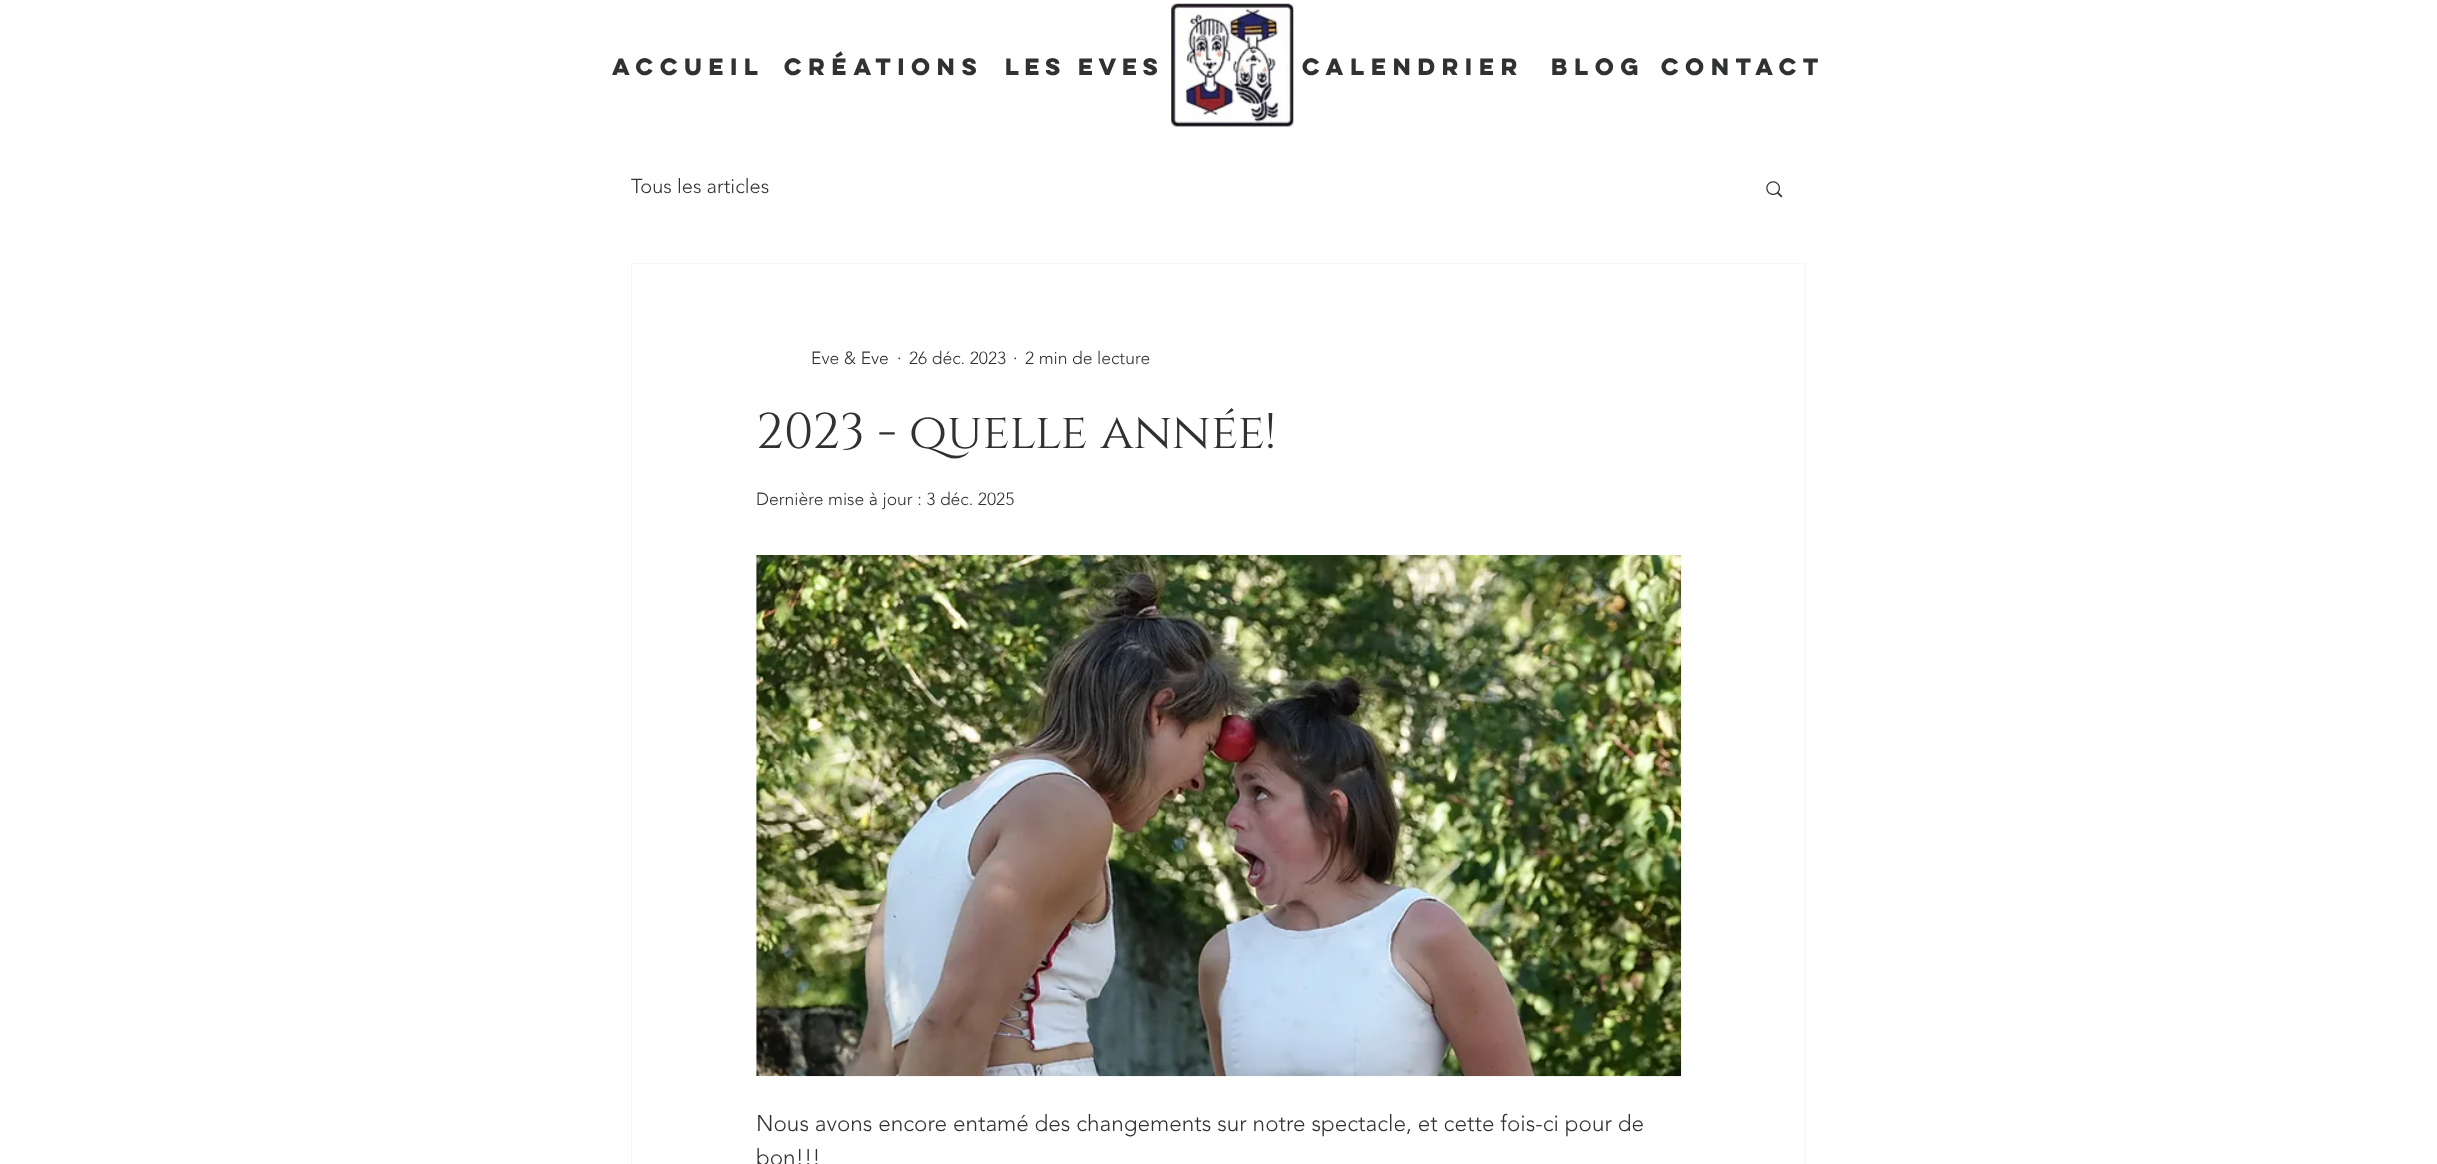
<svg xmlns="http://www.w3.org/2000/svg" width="2437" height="1164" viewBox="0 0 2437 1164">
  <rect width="100%" height="100%" fill="#fff"/>
  <image x="1171" y="3" width="123" height="124" href="img/1.png"/>
  <image x="1766" y="181" width="17" height="17" href="img/2.png"/>
  <path d="M631.5 263.5h1174v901H631.5z" fill="none" stroke="#f4f6f8"/>
  <image x="756" y="555" width="926" height="522" href="img/3.png"/>
  <g font-family="'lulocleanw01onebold'" font-size="21.25" font-weight="bold" letter-spacing="2.1" fill="#303131">
    <text x="612" y="75">accueil</text>
    <text x="784" y="75">créations</text>
  </g>
  <text x="1005" y="75" font-family="'lulocleanw01onebold'" font-size="21.25" font-weight="bold" letter-spacing="1" fill="#303131">les eves</text>
  <g font-family="'lulocleanw01onebold'" font-size="21.25" font-weight="bold" letter-spacing="2.1" fill="#303131">
    <text x="1302" y="75">calendrier</text>
    <text x="1551" y="75">blog</text>
    <text x="1661" y="75">contact</text>
  </g>
  <text x="631" y="193" font-family="'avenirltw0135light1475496'" font-size="20" font-weight="300" fill="#303131">Tous les articles</text>
  <g font-family="'avenirltw0135light1475496'" font-size="17.5" font-weight="300" fill="#303131">
    <text x="811" y="364">Eve &amp; Eve</text>
    <text x="897" y="364">·</text>
    <text x="909" y="364">26 déc. 2023</text>
    <text x="1013" y="364">·</text>
    <text x="1025" y="364">2 min de lecture</text>
  </g>
  <text x="756" y="448" font-family="Cinzel" font-size="50" fill="#303131">2023 - quelle année!</text>
  <text x="756" y="505" font-family="'avenirltw0135light1475496'" font-size="17.5" font-weight="300" fill="#303131">Dernière mise à jour : 3 déc. 2025</text>
  <g font-family="'avenirltw0135light1475496'" font-size="22.5" font-weight="300" fill="#303131">
    <text x="756" y="1131">Nous avons encore entamé des changements sur notre spectacle, et cette fois-ci pour de</text>
    <text x="756" y="1165">bon!!!</text>
  </g>
</svg>
